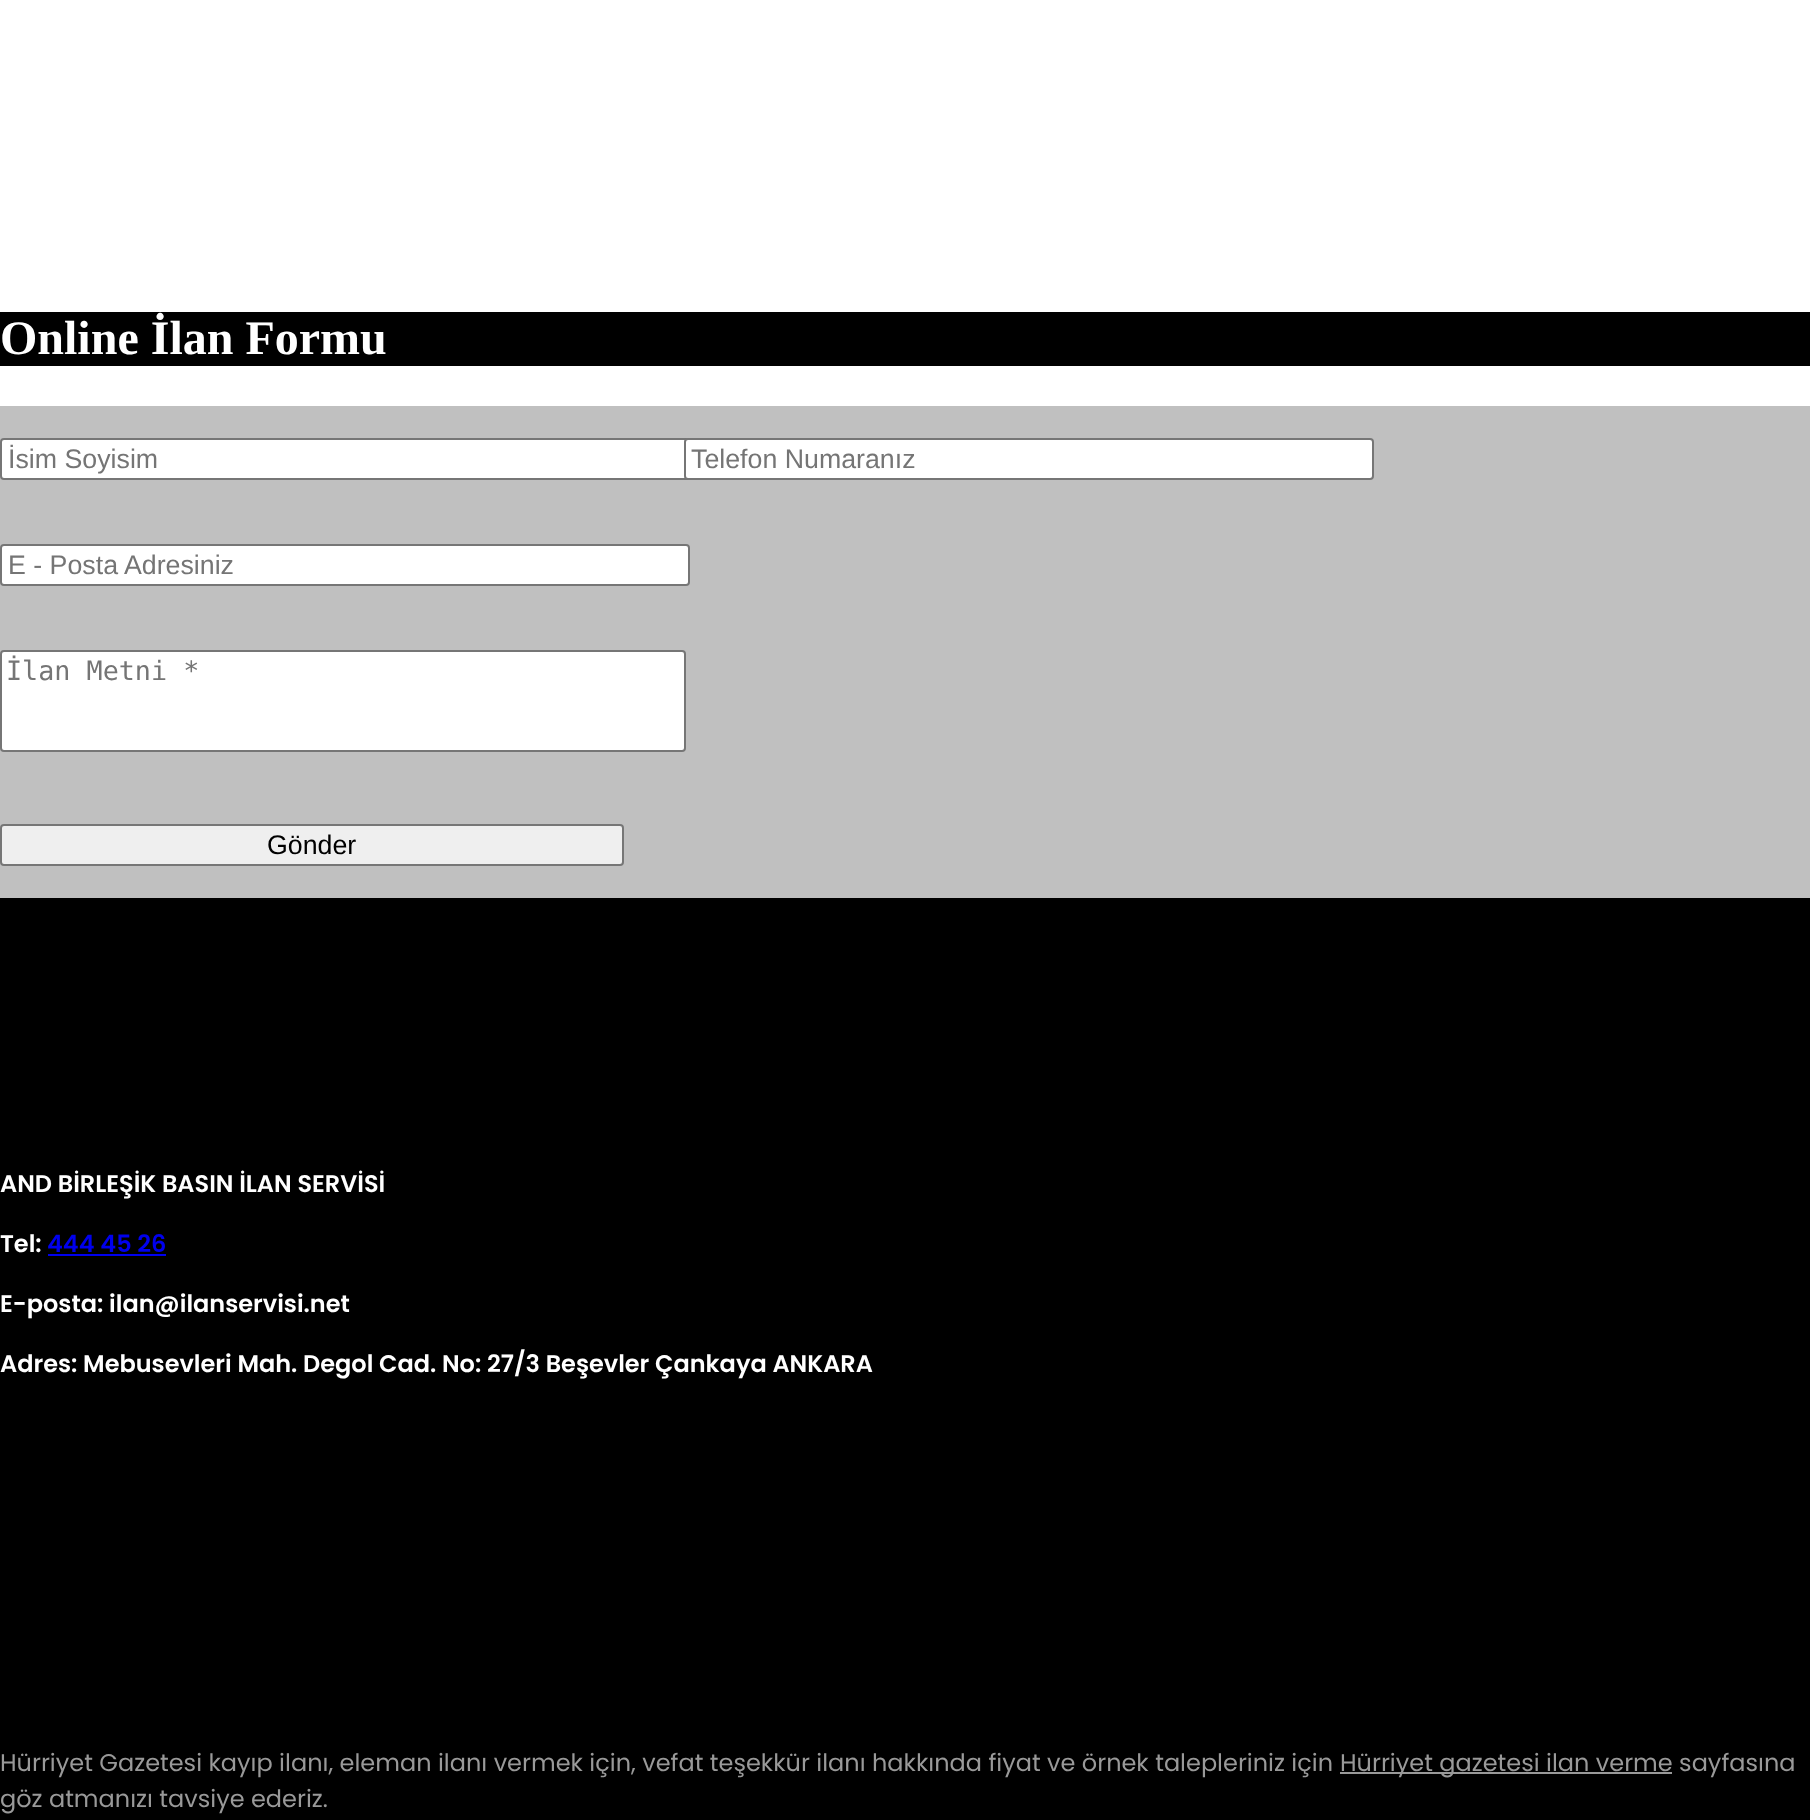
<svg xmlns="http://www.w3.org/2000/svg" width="1810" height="1820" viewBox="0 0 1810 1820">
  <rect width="100%" height="100%" fill="#fff"/>
  <path d="M0 312h1810v54H0z" fill="#000"/>
  <path d="M0 406h1810v492H0z" fill="#c0c0c0"/>
  <rect x="1" y="439" width="688" height="40" rx="3" fill="#fff" stroke="#767676" stroke-width="2"/>
  <rect x="685" y="439" width="688" height="40" rx="3" fill="#fff" stroke="#767676" stroke-width="2"/>
  <rect x="1" y="545" width="688" height="40" rx="3" fill="#fff" stroke="#767676" stroke-width="2"/>
  <rect x="1" y="651" width="684" height="100" rx="3" fill="#fff" stroke="#767676" stroke-width="2"/>
  <rect x="1" y="825" width="622" height="40" rx="3" fill="#efefef" stroke="#767676" stroke-width="2"/>
  <path d="M0 898h1810v922H0z" fill="#000"/>
  <path d="M48 1254h118v2H48z" fill="#00e"/>
  <path d="M1340 1772h332v2H1340z" fill="#999"/>
  <text x="0" y="354" font-family="Liberation Serif" font-size="48" font-weight="bold" fill="#fff">Online İlan Formu</text>
  <g font-family="Liberation Sans" font-size="26.75" fill="#757575">
    <text x="8" y="468">İsim Soyisim</text>
    <text x="691" y="468">Telefon Numaranız</text>
    <text x="8" y="574">E - Posta Adresiniz</text>
  </g>
  <text x="6" y="680" font-family="DejaVu Sans Mono" font-size="26.75" fill="#757575">İlan Metni *</text>
  <text x="267" y="854" font-family="Liberation Sans" font-size="26.75" fill="#000">Gönder</text>
  <g font-family="Poppins" font-size="24" font-weight="600" fill="#fff">
    <text x="0" y="1192">AND BİRLEŞİK BASIN İLAN SERVİSİ</text>
    <text x="0" y="1252">Tel:</text>
  </g>
  <text x="47" y="1252" font-family="Poppins" font-size="24" font-weight="600" fill="#00e">444 45 26</text>
  <g font-family="Poppins" font-size="24" font-weight="600" fill="#fff">
    <text x="0" y="1312">E-posta: ilan@ilanservisi.net</text>
    <text x="0" y="1372">Adres: Mebusevleri Mah. Degol Cad. No: 27/3 Beşevler Çankaya ANKARA</text>
  </g>
  <g font-family="Poppins" font-size="24" fill="#999">
    <text x="0" y="1771">Hürriyet Gazetesi kayıp ilanı, eleman ilanı vermek için, vefat teşekkür ilanı hakkında fiyat ve örnek talepleriniz için</text>
    <text x="1340" y="1771">Hürriyet gazetesi ilan verme sayfasına</text>
    <text x="0" y="1807">göz atmanızı tavsiye ederiz.</text>
  </g>
</svg>
